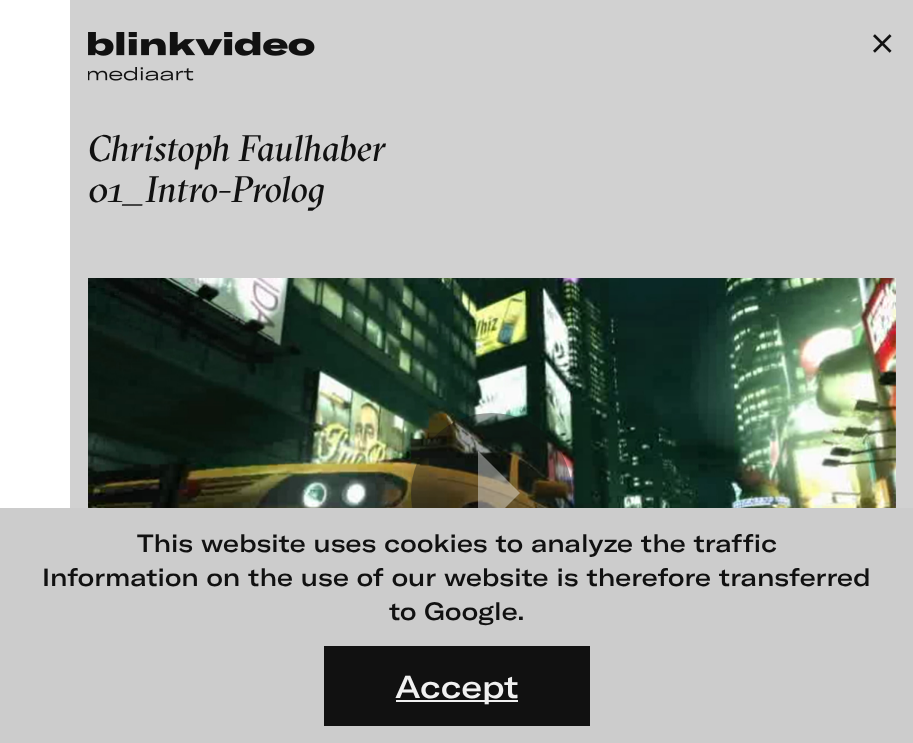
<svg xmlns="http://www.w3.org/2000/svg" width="913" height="743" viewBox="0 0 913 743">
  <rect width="100%" height="100%" fill="#fff"/>
  <path d="M70 0h843v508H70z" fill="#d1d1d1"/>
  <image x="873" y="34" width="19" height="19" href="img/1.png"/>
  <image x="88" y="32" width="227" height="49" href="img/2.png"/>
  <image x="88" y="278" width="808" height="230" href="img/3.png"/>
  <circle cx="491.5" cy="493.5" r="80.5" fill="#11111166"/>
  <path d="M478 535L520 493L478 451Z" fill="#ffffff66"/>
  <path d="M0 508h913v235H0z" fill="#ccc"/>
  <path d="M324 646h266v80H324z" fill="#111"/>
  <path d="M396 700h122v2H396z" fill="#f1f1f1"/>
  <g font-family="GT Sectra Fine" font-size="36.75" font-style="italic" fill="#111">
    <text x="88" y="161">Christoph Faulhaber</text>
    <text x="88" y="202">01_Intro-Prolog</text>
  </g>
  <g font-family="GT America" font-size="24.5" font-weight="500" fill="#111">
    <text x="137" y="552">This website uses cookies to analyze the traffic</text>
    <text x="42" y="586">Information on the use of our website is therefore transferred</text>
    <text x="389" y="620">to Google.</text>
  </g>
  <text x="395" y="698" font-family="GT America" font-size="31.5" font-weight="500" fill="#f1f1f1">Accept</text>
</svg>
